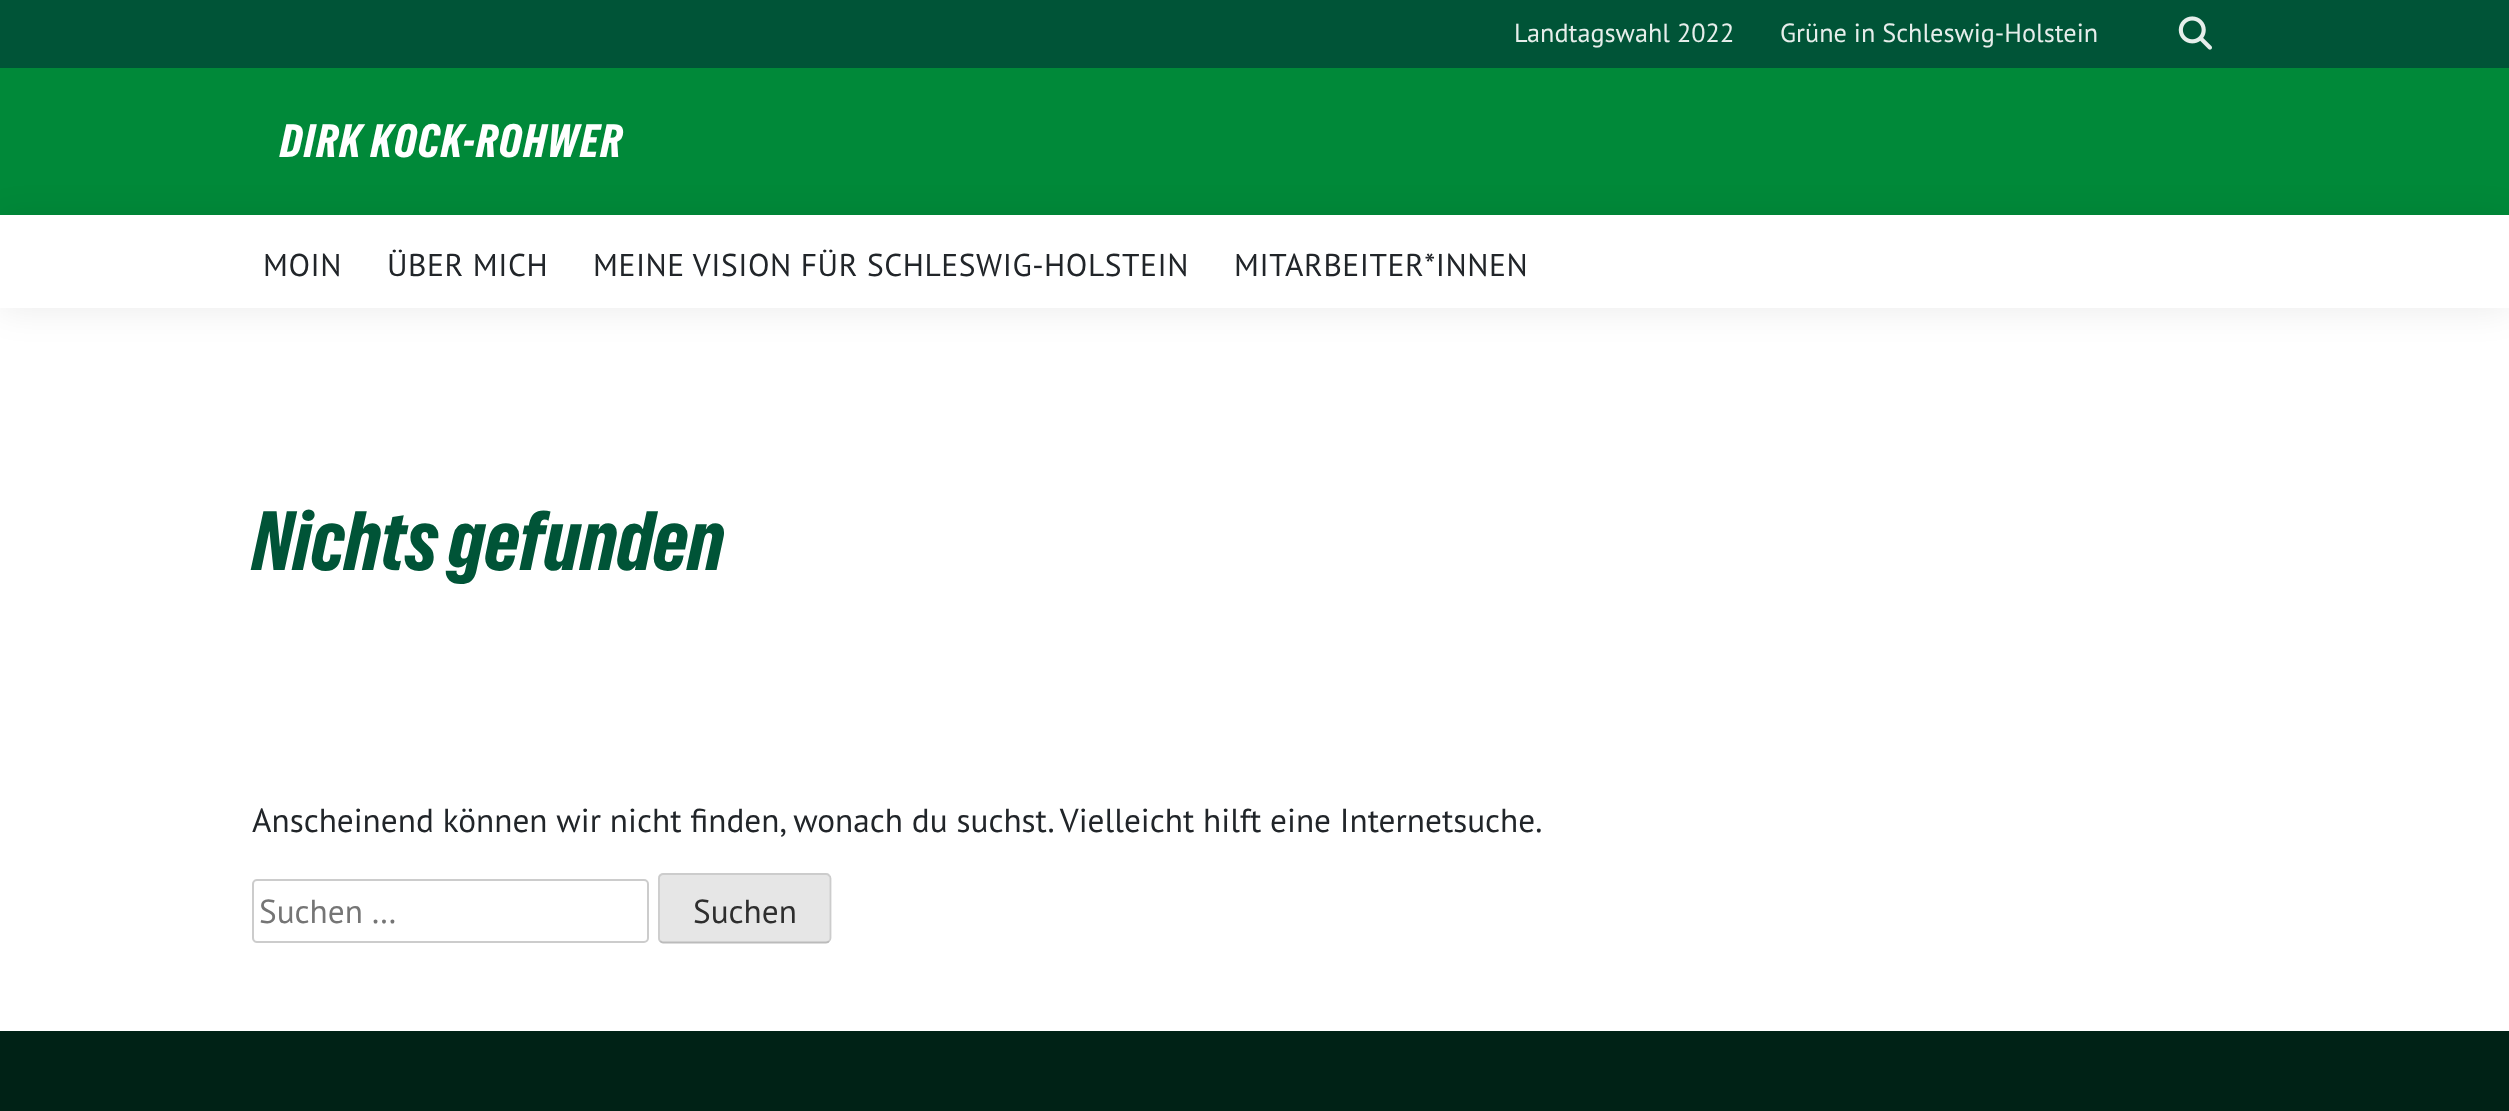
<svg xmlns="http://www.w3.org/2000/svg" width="2509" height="1111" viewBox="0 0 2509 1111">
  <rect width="100%" height="100%" fill="#fff"/>
  <path d="M0 0h2509v68H0z" fill="#005437"/>
  <image x="2178" y="16" width="34" height="34" href="img/1.png"/>
  <path d="M0 68h2509v147H0z" fill="#008939"/>
  <path d="M0 217h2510v93H0z" fill="#00000014" filter="blur(17.5px)"/>
  <path d="M0 215h2509v93H0z" fill="#fff"/>
  <rect x="253" y="880" width="395" height="62" rx="4" fill="none" stroke="#ccc" stroke-width="2"/>
  <rect x="658" y="873" width="173" height="70" rx="5" fill="#e6e6e6"/>
  <path d="M829 941C828.5 942 827 942.5 826 942.5H663C662 942.5 661 942 660 941" fill="none" stroke="#bbb" stroke-width="1.8"/>
  <path d="M660 941C659.5 940.5 659 939 659 938V878.5C659 877.5 659.5 876 660 875.5C661 874.5 662 874 663 874H826C827 874 828.5 874.5 829 875.5C830 876 830.5 877.5 830.5 878.5V938C830.5 939 830 940.5 829 941" fill="none" stroke="#ccc" stroke-width="1.8"/>
  <path d="M0 1031h2509v80H0z" fill="#002216"/>
  <g font-family="PT Sans" font-size="26.25" fill="#e6eeeb">
    <text x="1514" y="42">Landtagswahl 2022</text>
    <text x="1780" y="42">Grüne in Schleswig-Holstein</text>
  </g>
  <text x="280" y="157" font-family="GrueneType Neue" font-size="43.75" letter-spacing="1.75" fill="#fff">DIRK KOCK-ROHWER</text>
  <g font-family="PT Sans" font-size="31.5" letter-spacing="0.55" fill="#212529">
    <text x="263" y="276">MOIN</text>
    <text x="387" y="276">ÜBER MICH</text>
    <text x="593" y="276">MEINE VISION FÜR SCHLESWIG-HOLSTEIN</text>
    <text x="1234" y="276">MITARBEITER*INNEN</text>
  </g>
  <text x="252" y="570" font-family="GrueneType Neue" font-size="78.75" fill="#005437">Nichts gefunden</text>
  <text x="252" y="832" font-family="PT Sans" font-size="33.25" fill="#212529">Anscheinend können wir nicht finden, wonach du suchst. Vielleicht hilft eine Internetsuche.</text>
  <text x="259" y="923" font-family="PT Sans" font-size="33.25" fill="#757575">Suchen …</text>
  <text x="693" y="923" font-family="PT Sans" font-size="33.25" fill="#2e2e2e">Suchen</text>
</svg>
